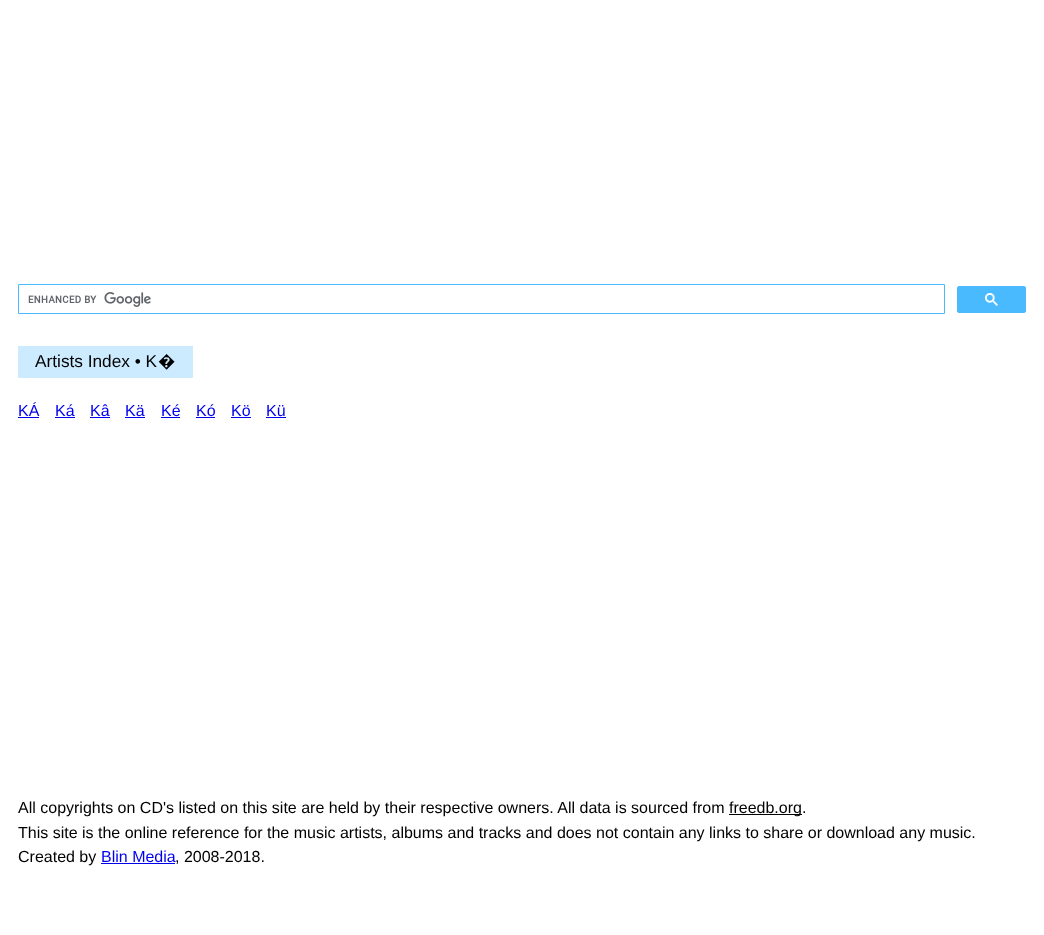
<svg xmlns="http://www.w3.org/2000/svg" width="1044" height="935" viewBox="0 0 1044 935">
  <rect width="100%" height="100%" fill="#fff"/>
  <path d="M18.5 284.5h926v29H18.5z" fill="none" stroke="#4abaff"/>
  <image x="28" y="292" width="123" height="15" href="img/1.png"/>
  <rect x="957.5" y="286.5" width="68" height="26" rx="1.5" fill="#4abaff" stroke="#4abaff"/>
  <image x="985" y="293" width="13" height="13" href="img/2.png"/>
  <path d="M18 346h175v32H18z" fill="#ccebff"/>
  <path d="M18 417h21v1H18z" fill="#00e"/>
  <path d="M55 417h20v1H55z" fill="#00e"/>
  <path d="M90 417h20v1H90z" fill="#00e"/>
  <path d="M125 417h20v1H125z" fill="#00e"/>
  <path d="M161 417h19v1H161z" fill="#00e"/>
  <path d="M196 417h19v1H196z" fill="#00e"/>
  <path d="M231 417h20v1H231z" fill="#00e"/>
  <path d="M266 417h20v1H266z" fill="#00e"/>
  <path d="M729 814h73v1H729z" fill="#000"/>
  <path d="M101 863h74v1H101z" fill="#00e"/>
  <text x="35" y="367" font-family="Liberation Sans" font-size="17.25" fill="#000">Artists Index • K</text>
  <text x="158" y="367" font-family="Noto Sans" font-size="17.25" fill="#000">�</text>
  <g font-family="Liberation Sans" font-size="16" fill="#00e">
    <text x="18" y="416">KÁ</text>
    <text x="55" y="416">Ká</text>
    <text x="90" y="416">Kâ</text>
    <text x="125" y="416">Kä</text>
    <text x="161" y="416">Ké</text>
    <text x="196" y="416">Kó</text>
    <text x="231" y="416">Kö</text>
    <text x="266" y="416">Kü</text>
  </g>
  <g font-family="Liberation Sans" font-size="16" fill="#000">
    <text x="18" y="813">All copyrights on CD's listed on this site are held by their respective owners. All data is sourced from</text>
    <text x="729" y="813">freedb.org.</text>
    <text x="18" y="838">This site is the online reference for the music artists, albums and tracks and does not contain any links to share or download any music.</text>
    <text x="18" y="862">Created by</text>
  </g>
  <text x="101" y="862" font-family="Liberation Sans" font-size="16" fill="#00e">Blin Media</text>
  <text x="175" y="862" font-family="Liberation Sans" font-size="16" fill="#000">, 2008-2018.</text>
</svg>
